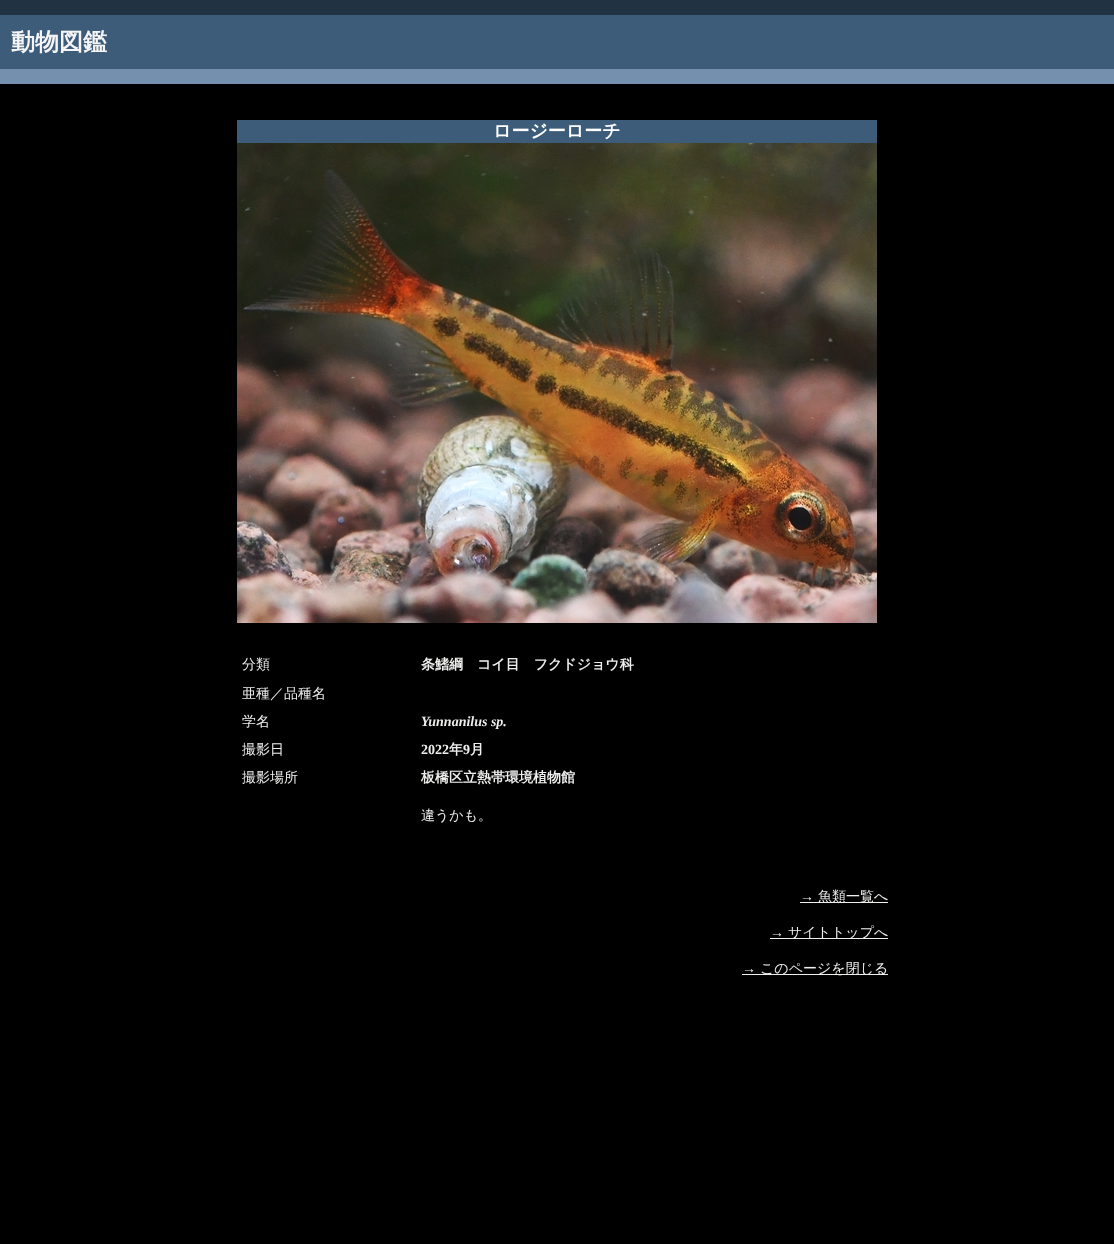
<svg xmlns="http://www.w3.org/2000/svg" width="1114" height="1244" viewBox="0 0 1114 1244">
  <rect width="100%" height="100%" fill="#000001"/>
  <path d="M0 0h1114v15H0z" fill="#213242"/>
  <path d="M0 15h1114v54H0z" fill="#3d5c7a"/>
  <path d="M0 69h1114v15H0z" fill="#7590ae"/>
  <path d="M237 120h640v23H237z" fill="#3d5c7a"/>
  <image x="237" y="143" width="640" height="480" href="img/1.png"/>
  <path d="M800 902h88v1H800z" fill="#eeeeed"/>
  <path d="M770 938h118v1H770z" fill="#eeeeed"/>
  <path d="M742 974h146v1H742z" fill="#eeeeed"/>
  <text x="11" y="50" font-family="WenQuanYi Zen Hei" font-size="24" font-weight="bold" fill="#f5f5f6">動物図鑑</text>
  <text x="493" y="137" font-family="WenQuanYi Zen Hei" font-size="18" font-weight="bold" fill="#fff">ロージーローチ</text>
  <text x="242" y="669" font-family="WenQuanYi Zen Hei" font-size="14" font-weight="500" fill="#eeeeed">分類</text>
  <text x="421" y="669" font-family="WenQuanYi Zen Hei" font-size="14" font-weight="bold" fill="#eeeeed">条鰭綱　コイ目　フクドジョウ科</text>
  <g font-family="WenQuanYi Zen Hei" font-size="14" font-weight="500" fill="#eeeeed">
    <text x="242" y="698">亜種／品種名</text>
    <text x="242" y="726">学名</text>
  </g>
  <text x="421" y="726" font-family="Liberation Serif" font-size="14" font-weight="bold" font-style="italic" fill="#eeeeed">Yunnanilus sp.</text>
  <text x="242" y="754" font-family="WenQuanYi Zen Hei" font-size="14" font-weight="500" fill="#eeeeed">撮影日</text>
  <text x="421" y="754" font-family="Liberation Serif" font-size="14" font-weight="bold" fill="#eeeeed">2022</text>
  <text x="449" y="754" font-family="WenQuanYi Zen Hei" font-size="14" font-weight="bold" fill="#eeeeed">年</text>
  <text x="463" y="754" font-family="Liberation Serif" font-size="14" font-weight="bold" fill="#eeeeed">9</text>
  <text x="470" y="754" font-family="WenQuanYi Zen Hei" font-size="14" font-weight="bold" fill="#eeeeed">月</text>
  <text x="242" y="782" font-family="WenQuanYi Zen Hei" font-size="14" font-weight="500" fill="#eeeeed">撮影場所</text>
  <text x="421" y="782" font-family="WenQuanYi Zen Hei" font-size="14" font-weight="bold" fill="#eeeeed">板橋区立熱帯環境植物館</text>
  <text x="421" y="820" font-family="WenQuanYi Zen Hei" font-size="14" font-weight="500" fill="#eeeeed">違うかも。</text>
  <text x="800" y="901" font-family="Liberation Serif" font-size="14" fill="#eeeeed">→</text>
  <text x="818" y="901" font-family="WenQuanYi Zen Hei" font-size="14" font-weight="500" fill="#eeeeed">魚類一覧へ</text>
  <text x="770" y="937" font-family="Liberation Serif" font-size="14" fill="#eeeeed">→</text>
  <text x="788" y="937" font-family="WenQuanYi Zen Hei" font-size="14" font-weight="500" fill="#eeeeed">サイトトップへ</text>
  <text x="742" y="973" font-family="Liberation Serif" font-size="14" fill="#eeeeed">→</text>
  <text x="760" y="973" font-family="WenQuanYi Zen Hei" font-size="14" font-weight="500" fill="#eeeeed">このページを閉じる</text>
</svg>
